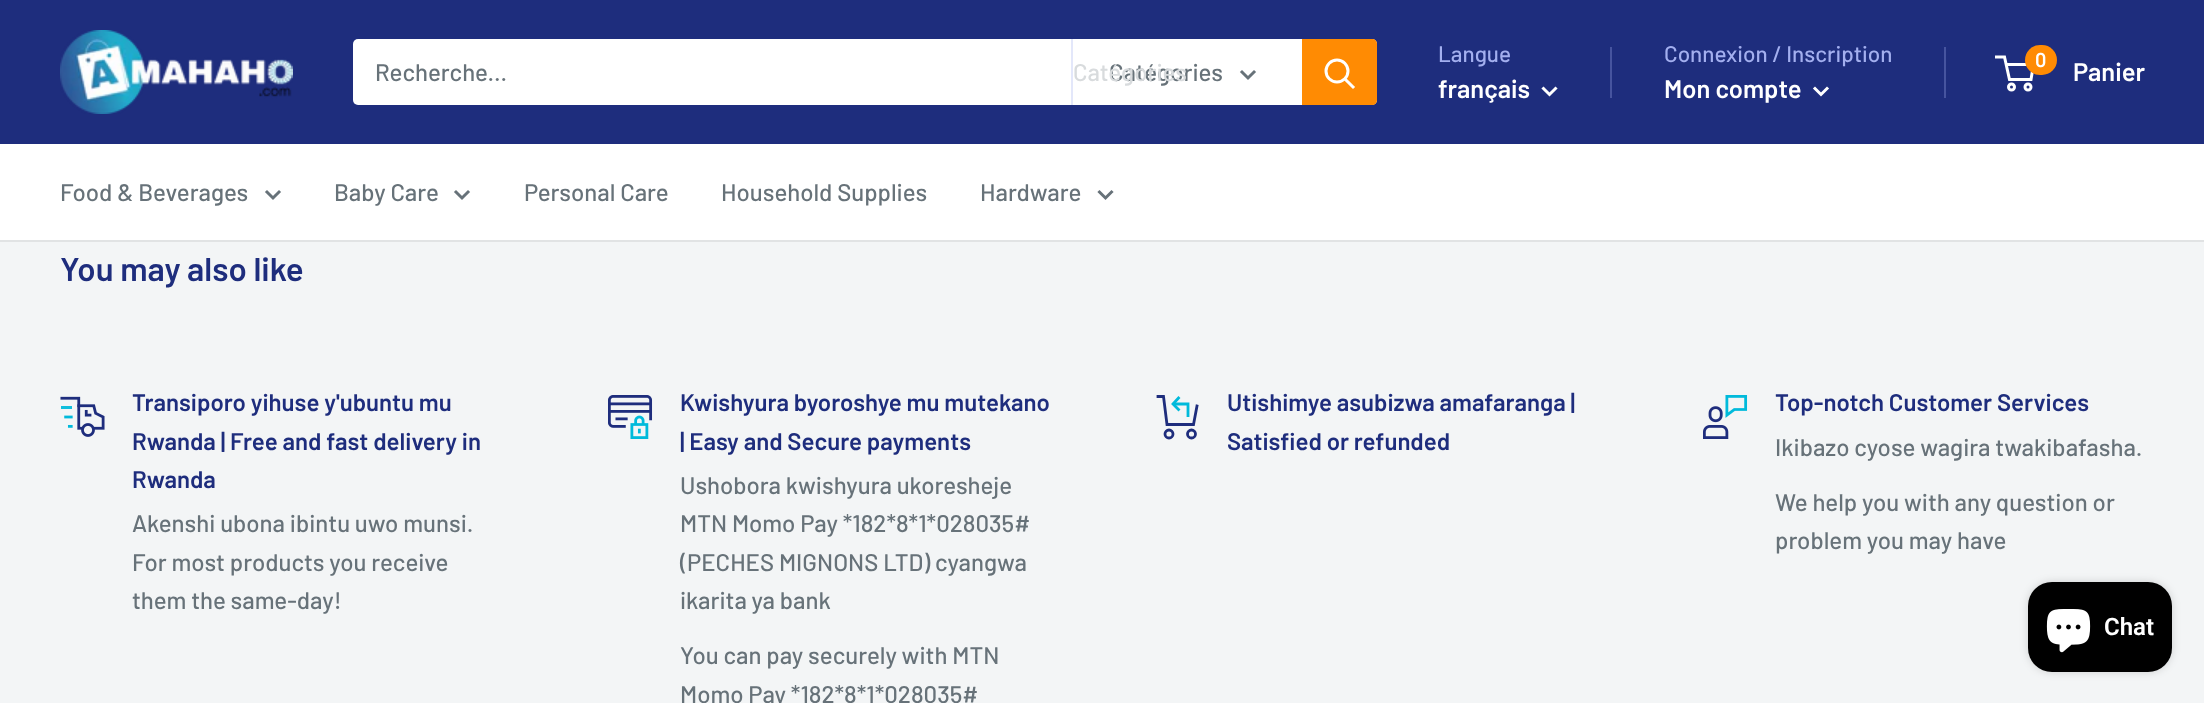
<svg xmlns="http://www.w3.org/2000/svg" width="2204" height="703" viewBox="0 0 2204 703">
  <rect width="100%" height="100%" fill="#f3f5f6"/>
  <path d="M0 0h2204v144H0z" fill="#1e2d7d"/>
  <image x="60" y="30" width="233" height="84" href="img/1.png"/>
  <rect x="353" y="39" width="1024" height="66" rx="5" fill="#fff"/>
  <path d="M1071 39h2v66H1071z" fill="#e3e7fa"/>
  <path d="M1254 72L1248 78L1242 72" fill="none" stroke="#677279" stroke-width="3" stroke-linecap="square"/>
  <path d="M1302 39H1372C1375 39 1377 41 1377 44V100C1377 103 1375 105 1372 105H1302Z" fill="#ff8b03"/>
  <path d="M1353 87L1345.5 79.5" fill="none" stroke="#fff" stroke-width="3" stroke-linecap="square"/>
  <circle cx="1337" cy="71" r="11" fill="none" stroke="#fff" stroke-width="3"/>
  <path d="M1555.5 88.5L1549.5 94.5L1543.5 88.5" fill="none" stroke="#fff" stroke-width="3" stroke-linecap="square"/>
  <path d="M1610 47h2v51H1610z" fill="#46549f"/>
  <path d="M1944 47h2v51H1944z" fill="#46549f"/>
  <path d="M1827 88.5L1821 94.5L1815 88.5" fill="none" stroke="#fff" stroke-width="3" stroke-linecap="square"/>
  <circle cx="2011.5" cy="87" r="3" fill="none" stroke="#fff" stroke-width="3"/>
  <circle cx="2028" cy="87" r="3" fill="none" stroke="#fff" stroke-width="3"/>
  <path d="M2006 64.5H2033.5L2031 79.5H2009.5L2004.5 57H1995" fill="none" stroke="#fff" stroke-width="3"/>
  <rect x="2025" y="45" width="32" height="30" rx="15" fill="#ff8b03"/>
  <path d="M0 144h2204v96H0z" fill="#fff"/>
  <path d="M0 240h2204v2H0z" fill="#e1e3e4"/>
  <path d="M279 192L273 198L267 192" fill="none" stroke="#677279" stroke-width="3" stroke-linecap="square"/>
  <path d="M468 192L462 198L456 192" fill="none" stroke="#677279" stroke-width="3" stroke-linecap="square"/>
  <path d="M1111.5 192L1105.5 198L1099.5 192" fill="none" stroke="#677279" stroke-width="3" stroke-linecap="square"/>
  <image x="60" y="396" width="45" height="41" href="img/2.png"/>
  <image x="608" y="395" width="45" height="44" href="img/3.png"/>
  <path d="M1173 404H1188V417" fill="none" stroke="#00badb" stroke-width="2.8"/>
  <path d="M1178.5 409.5L1173 404L1178.5 398" fill="none" stroke="#00badb" stroke-width="2.8" stroke-linecap="square"/>
  <path d="M1197 406L1193.5 424.5H1167L1163.5 396.5H1158" fill="none" stroke="#1e2d7d" stroke-width="2.8" stroke-linecap="square"/>
  <circle cx="1169" cy="434" r="4" fill="none" stroke="#1e2d7d" stroke-width="2.8"/>
  <circle cx="1191.5" cy="434" r="4" fill="none" stroke="#1e2d7d" stroke-width="2.8"/>
  <image x="1703" y="395" width="45" height="44" href="img/4.png"/>
  <rect x="2028" y="582" width="144" height="90" rx="24" fill="#00000026" filter="blur(4px)"/>
  <rect x="2028" y="582" width="144" height="90" rx="24" fill="#000"/>
  <image x="2046" y="609" width="45" height="44" href="img/5.png"/>
  <g font-family="Barlow" font-size="24" font-weight="500" fill="#677279">
    <text x="375" y="81">Recherche...</text>
    <text x="1109" y="81">Catégories</text>
  </g>
  <text x="1073" y="81" font-family="Barlow" font-size="24" font-weight="500" fill="#d8dbdd">Catégories</text>
  <text x="1438" y="62" font-family="Barlow" font-size="22.5" font-weight="500" fill="#a3afef">Langue</text>
  <text x="1438" y="98" font-family="Barlow" font-size="25.5" font-weight="600" fill="#fff">français</text>
  <text x="1664" y="62" font-family="Barlow" font-size="22.5" font-weight="500" fill="#a3afef">Connexion / Inscription</text>
  <text x="1664" y="98" font-family="Barlow" font-size="25.5" font-weight="600" fill="#fff">Mon compte</text>
  <text x="2035" y="67" font-family="Barlow" font-size="20" font-weight="600" fill="#fff">0</text>
  <text x="2073" y="81" font-family="Barlow" font-size="25.5" font-weight="600" fill="#fff">Panier</text>
  <g font-family="Barlow" font-size="24" font-weight="500" fill="#677279">
    <text x="60" y="201">Food &amp; Beverages</text>
    <text x="334" y="201">Baby Care</text>
    <text x="524" y="201">Personal Care</text>
    <text x="721" y="201">Household Supplies</text>
    <text x="980" y="201">Hardware</text>
  </g>
  <text x="60" y="281" font-family="Barlow" font-size="33" font-weight="600" fill="#1e2d7d">You may also like</text>
  <g font-family="Barlow" font-size="24" font-weight="600" fill="#1e2d7d">
    <text x="132" y="411">Transiporo yihuse y'ubuntu mu</text>
    <text x="132" y="450">Rwanda | Free and fast delivery in</text>
    <text x="132" y="488">Rwanda</text>
  </g>
  <g font-family="Barlow" font-size="24" font-weight="500" fill="#677279">
    <text x="132" y="532">Akenshi ubona ibintu uwo munsi.</text>
    <text x="132" y="571">For most products you receive</text>
    <text x="132" y="609">them the same-day!</text>
  </g>
  <g font-family="Barlow" font-size="24" font-weight="600" fill="#1e2d7d">
    <text x="680" y="411">Kwishyura byoroshye mu mutekano</text>
    <text x="680" y="450">| Easy and Secure payments</text>
  </g>
  <g font-family="Barlow" font-size="24" font-weight="500" fill="#677279">
    <text x="680" y="494">Ushobora kwishyura ukoresheje</text>
    <text x="680" y="532">MTN Momo Pay *182*8*1*028035#</text>
    <text x="680" y="571">(PECHES MIGNONS LTD) cyangwa</text>
    <text x="680" y="609">ikarita ya bank</text>
    <text x="680" y="664">You can pay securely with MTN</text>
    <text x="680" y="703">Momo Pay *182*8*1*028035#</text>
  </g>
  <g font-family="Barlow" font-size="24" font-weight="600" fill="#1e2d7d">
    <text x="1227" y="411">Utishimye asubizwa amafaranga |</text>
    <text x="1227" y="450">Satisfied or refunded</text>
    <text x="1775" y="411">Top-notch Customer Services</text>
  </g>
  <g font-family="Barlow" font-size="24" font-weight="500" fill="#677279">
    <text x="1775" y="456">Ikibazo cyose wagira twakibafasha.</text>
    <text x="1775" y="511">We help you with any question or</text>
    <text x="1775" y="549">problem you may have</text>
  </g>
  <text x="2104" y="635" font-family="Roboto" font-size="24" font-weight="600" fill="#fff">Chat</text>
</svg>
